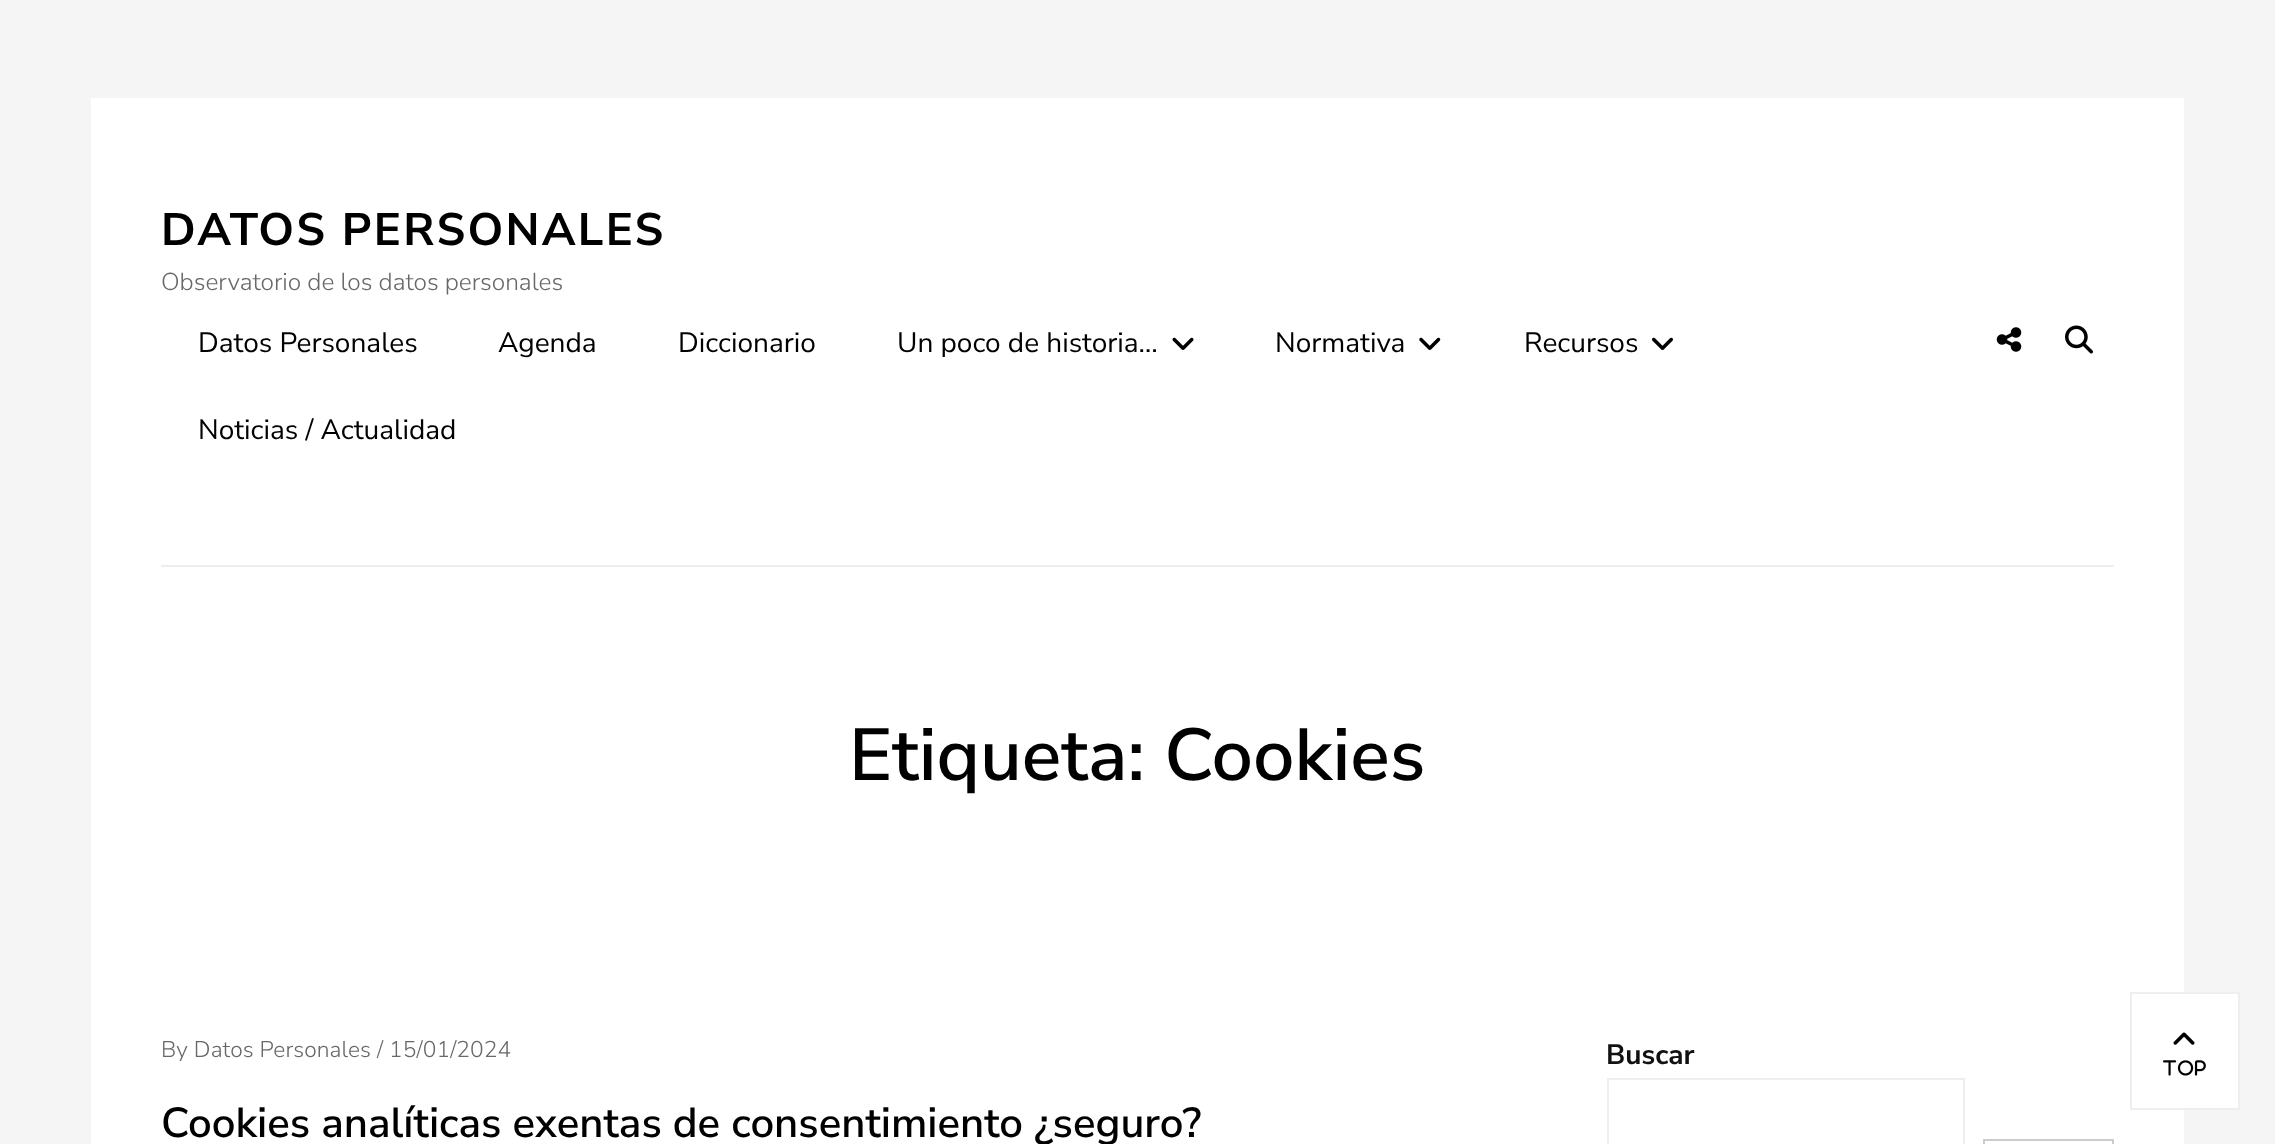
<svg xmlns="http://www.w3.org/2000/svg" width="2275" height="1144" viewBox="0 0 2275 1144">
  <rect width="100%" height="100%" fill="#f5f5f5"/>
  <path d="M91 98h2093v1046H91z" fill="#fff"/>
  <image x="1172" y="337" width="22" height="13" href="img/1.png"/>
  <image x="1419" y="337" width="22" height="13" href="img/2.png"/>
  <image x="1652" y="337" width="21" height="13" href="img/3.png"/>
  <image x="1996" y="327" width="26" height="25" href="img/4.png"/>
  <image x="2065" y="325" width="28" height="29" href="img/5.png"/>
  <path d="M161 565h1953v2H161z" fill="#eee"/>
  <path d="M1608 1079h356v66H1608z" fill="none" stroke="#eee" stroke-width="2"/>
  <path d="M1984 1140h129v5H1984z" fill="none" stroke="#ccc" stroke-width="2"/>
  <path d="M2184 994h54v114H2184z" fill="#fff"/>
  <path d="M2131 993h108v116H2131z" fill="none" stroke="#eee" stroke-width="2"/>
  <image x="2173" y="1032" width="22" height="13" href="img/6.png"/>
  <image x="2163" y="1060" width="43" height="16" href="img/7.png"/>
  <text x="161" y="245" font-family="Nunito Sans" font-size="45.5" font-weight="bold" letter-spacing="2.25" fill="#000">DATOS PERSONALES</text>
  <text x="161" y="290" font-family="Nunito Sans" font-size="24.5" font-weight="300" fill="#686868">Observatorio de los datos personales</text>
  <g font-family="Nunito Sans" font-size="28" fill="#000">
    <text x="198" y="352">Datos Personales</text>
    <text x="498" y="352">Agenda</text>
    <text x="678" y="352">Diccionario</text>
    <text x="897" y="352">Un poco de historia…</text>
    <text x="1275" y="352">Normativa</text>
    <text x="1524" y="352">Recursos</text>
    <text x="198" y="439">Noticias / Actualidad</text>
  </g>
  <text x="849" y="780" font-family="Nunito Sans" font-size="73.5" font-weight="600" fill="#000">Etiqueta: Cookies</text>
  <text x="161" y="1057" font-family="Nunito Sans" font-size="22.75" font-weight="300" letter-spacing="0.1" fill="#686868">By Datos Personales / 15/01/2024</text>
  <text x="161" y="1137" font-family="Nunito Sans" font-size="42" font-weight="600" fill="#000">Cookies analíticas exentas de consentimiento ¿seguro?</text>
  <text x="1606" y="1064" font-family="Nunito Sans" font-size="28" font-weight="bold" fill="#111">Buscar</text>
</svg>
